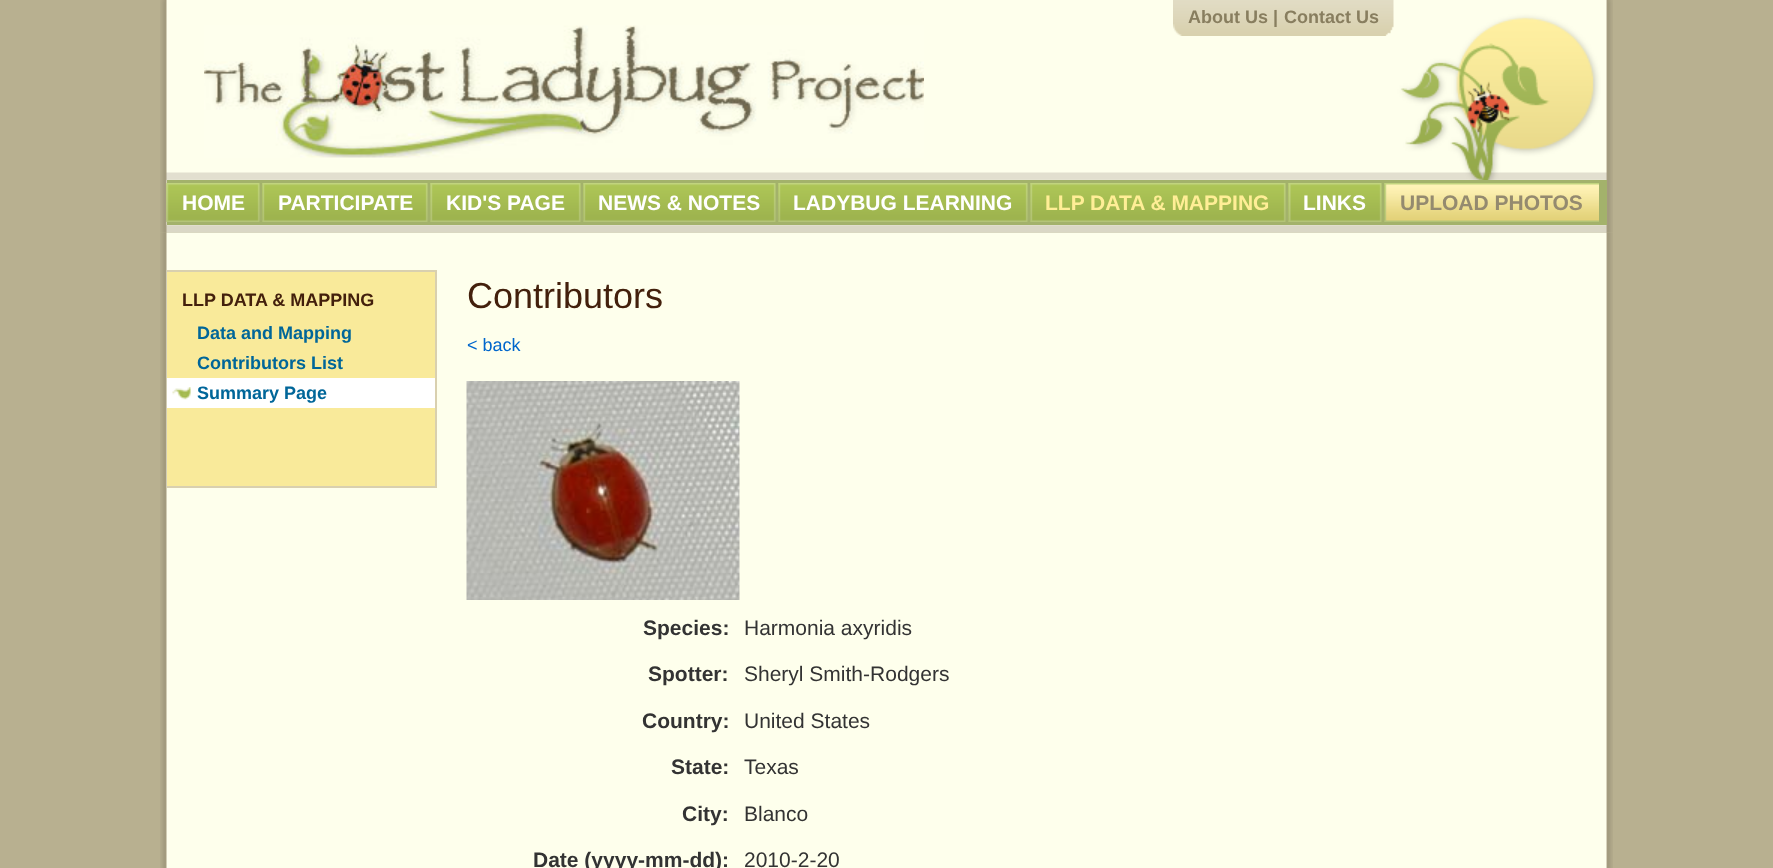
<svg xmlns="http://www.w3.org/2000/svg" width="1773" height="868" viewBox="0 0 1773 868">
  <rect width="100%" height="100%" fill="#b8b090"/>
  <image x="160" y="232" width="1453" height="636" href="img/17.png"/>
  <image x="160" y="0" width="1453" height="233" href="img/1.png"/>
  <image x="1173" y="0" width="221" height="36" href="img/2.png"/>
  <image x="1173" y="24" width="9" height="12" href="img/3.png"/>
  <image x="204" y="25" width="720" height="133" href="img/4.png"/>
  <path d="M167 180h1440v45H167z" fill="#a3b26b"/>
  <image x="166" y="183" width="94" height="39" href="img/5.png"/>
  <image x="166" y="183" width="3" height="39" href="img/6.png"/>
  <image x="262" y="183" width="166" height="39" href="img/7.png"/>
  <image x="262" y="183" width="3" height="39" href="img/8.png"/>
  <image x="430" y="183" width="151" height="39" href="img/9.png"/>
  <image x="430" y="183" width="3" height="39" href="img/8.png"/>
  <image x="583" y="183" width="193" height="39" href="img/10.png"/>
  <image x="583" y="183" width="3" height="39" href="img/8.png"/>
  <image x="778" y="183" width="250" height="39" href="img/11.png"/>
  <image x="778" y="183" width="3" height="39" href="img/8.png"/>
  <image x="1030" y="183" width="256" height="39" href="img/12.png"/>
  <image x="1030" y="183" width="3" height="39" href="img/8.png"/>
  <image x="1288" y="183" width="94" height="39" href="img/13.png"/>
  <image x="1288" y="183" width="3" height="39" href="img/14.png"/>
  <image x="1384" y="183" width="1" height="39" href="img/15.png"/>
  <image x="1384" y="183" width="215" height="39" href="img/16.png"/>
  <path d="M167 272h268v214H167z" fill="#f9ea9a"/>
  <path d="M167 270h270v2H167z" fill="#d9d0af"/>
  <path d="M435 270h2v218H435z" fill="#d9d0af"/>
  <path d="M167 486h270v2H167z" fill="#d9d0af"/>
  <path d="M167 378h268v30H167z" fill="#fff"/>
  <image x="172" y="387" width="19" height="13" href="img/18.png"/>
  <image x="466" y="381" width="274" height="219" href="img/19.png"/>
  <g font-family="Liberation Sans" font-size="18" font-weight="bold" fill="#887e5f">
    <text x="1188" y="23">About Us |</text>
    <text x="1284" y="23">Contact Us</text>
  </g>
  <g font-family="Liberation Sans" font-size="21" font-weight="bold" fill="#fff">
    <text x="182" y="210">HOME</text>
    <text x="278" y="210">PARTICIPATE</text>
    <text x="446" y="210">KID'S PAGE</text>
    <text x="598" y="210">NEWS &amp; NOTES</text>
    <text x="793" y="210">LADYBUG LEARNING</text>
  </g>
  <text x="1045" y="210" font-family="Liberation Sans" font-size="21" font-weight="bold" fill="#ffee96">LLP DATA &amp; MAPPING</text>
  <text x="1303" y="210" font-family="Liberation Sans" font-size="21" font-weight="bold" fill="#fff">LINKS</text>
  <text x="1400" y="210" font-family="Liberation Sans" font-size="21" font-weight="bold" fill="#948a6f">UPLOAD PHOTOS</text>
  <text x="182" y="306" font-family="Liberation Sans" font-size="18" font-weight="bold" fill="#43200c">LLP DATA &amp; MAPPING</text>
  <g font-family="Liberation Sans" font-size="18" font-weight="bold" fill="#069">
    <text x="197" y="339">Data and Mapping</text>
    <text x="197" y="369">Contributors List</text>
    <text x="197" y="399">Summary Page</text>
  </g>
  <text x="467" y="308" font-family="Liberation Sans" font-size="36" fill="#43200c">Contributors</text>
  <text x="467" y="351" font-family="Liberation Sans" font-size="18" fill="#06c">&lt; back</text>
  <text x="643" y="635" font-family="Liberation Sans" font-size="21" font-weight="bold" fill="#333">Species:</text>
  <text x="744" y="635" font-family="Liberation Sans" font-size="21" fill="#333">Harmonia axyridis</text>
  <text x="648" y="681" font-family="Liberation Sans" font-size="21" font-weight="bold" fill="#333">Spotter:</text>
  <text x="744" y="681" font-family="Liberation Sans" font-size="21" fill="#333">Sheryl Smith-Rodgers</text>
  <text x="642" y="728" font-family="Liberation Sans" font-size="21" font-weight="bold" fill="#333">Country:</text>
  <text x="744" y="728" font-family="Liberation Sans" font-size="21" fill="#333">United States</text>
  <text x="671" y="774" font-family="Liberation Sans" font-size="21" font-weight="bold" fill="#333">State:</text>
  <text x="744" y="774" font-family="Liberation Sans" font-size="21" fill="#333">Texas</text>
  <text x="682" y="821" font-family="Liberation Sans" font-size="21" font-weight="bold" fill="#333">City:</text>
  <text x="744" y="821" font-family="Liberation Sans" font-size="21" fill="#333">Blanco</text>
  <text x="533" y="867" font-family="Liberation Sans" font-size="21" font-weight="bold" fill="#333">Date (yyyy-mm-dd):</text>
  <text x="744" y="867" font-family="Liberation Sans" font-size="21" fill="#333">2010-2-20</text>
</svg>
